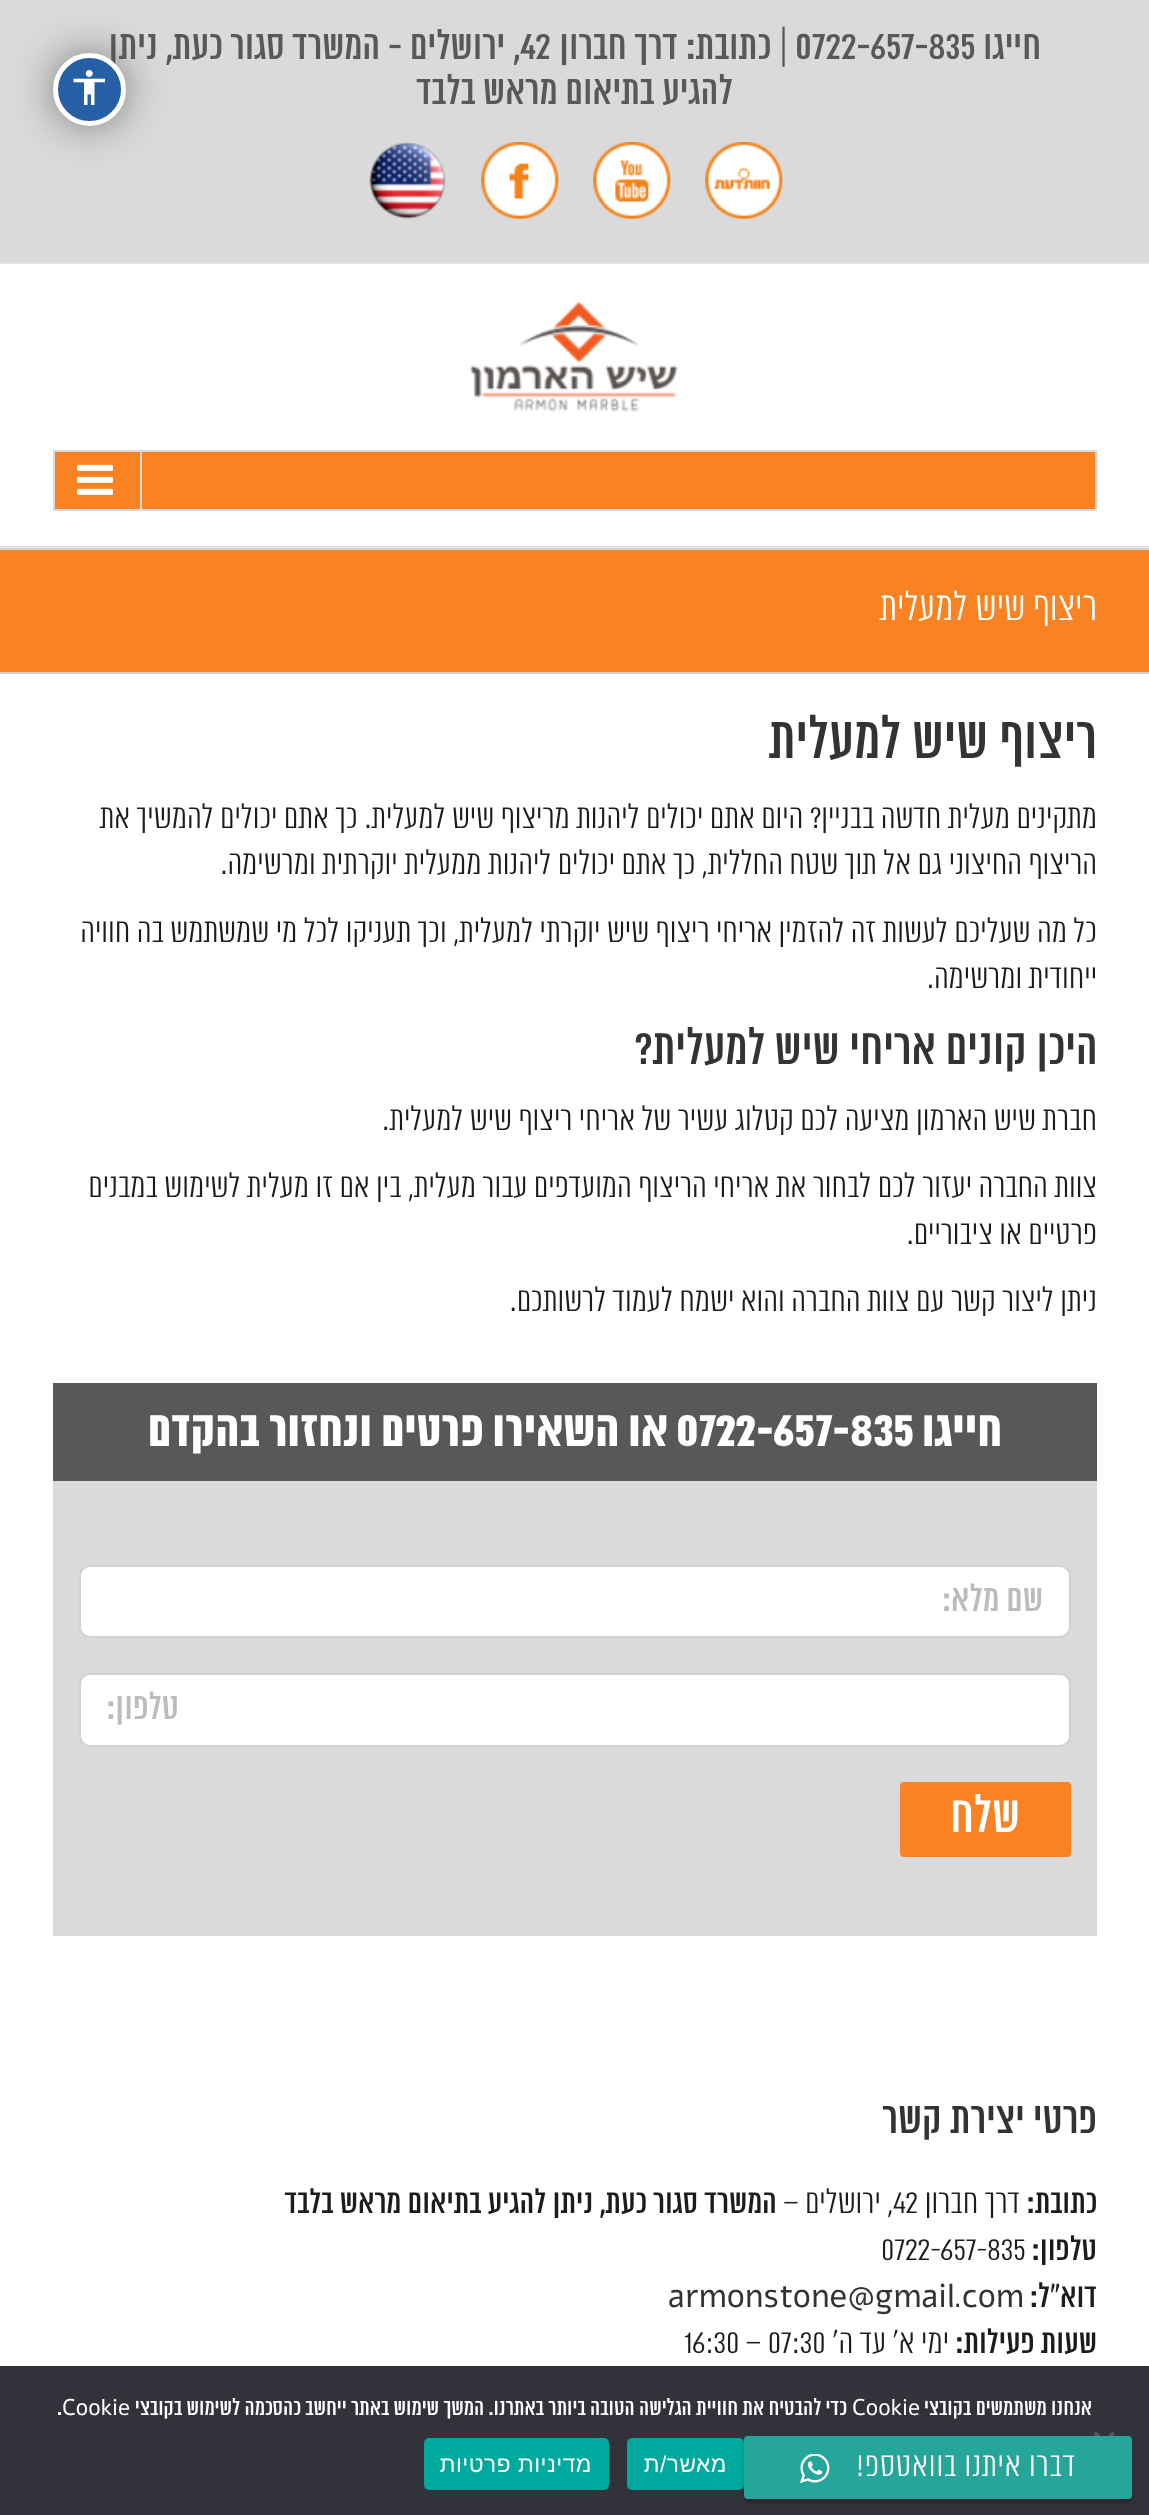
<svg xmlns="http://www.w3.org/2000/svg" width="1149" height="2515" viewBox="0 0 1149 2515">
  <rect width="100%" height="100%" fill="#fff"/>
  <path d="M0 0h1149v263H0z" fill="#dadada"/>
  <rect x="53" y="53" width="73" height="73" rx="36.5" fill="#595959bf" filter="blur(21px)"/>
  <path d="M0 263h1149v1H0z" fill="#e5e5e5"/>
  <image x="705" y="141" width="78" height="78" href="img/2.png"/>
  <image x="593" y="141" width="78" height="78" href="img/3.png"/>
  <image x="481" y="141" width="78" height="78" href="img/4.png"/>
  <image x="369" y="142" width="77" height="77" href="img/5.png"/>
  <path d="M0 546h1149v2H0z" fill="#e5e5e5"/>
  <image x="470" y="301" width="208" height="111" href="img/6.png"/>
  <path d="M54 451h1042v59H54z" fill="#f98323" stroke="#dadada" stroke-width="2"/>
  <path d="M140 452h2v57H140z" fill="#dadada"/>
  <image x="77" y="464" width="36" height="31" href="img/7.png"/>
  <path d="M0 550h1149v122H0z" fill="#f98323"/>
  <path d="M0 548h1149v2H0z" fill="#d2d3d4"/>
  <path d="M0 672h1149v2H0z" fill="#d2d3d4"/>
  <path d="M53 1383h1044v98H53z" fill="#58585a"/>
  <path d="M53 1481h1044v455H53z" fill="#dadada"/>
  <rect x="80" y="1566" width="990" height="71" rx="10" fill="#fff" stroke="#d2d2d2" stroke-width="2"/>
  <rect x="80" y="1674" width="990" height="72" rx="10" fill="#fff" stroke="#d2d2d2" stroke-width="2"/>
  <rect x="900" y="1782" width="171" height="75" rx="4" fill="#f98323"/>
  <path d="M0 2366h1149v149H0z" fill="#32323a"/>
  <path d="M1112.5 2431.5L1115 2434L1096 2452.5L1093.5 2450Z" fill="#59595d"/>
  <path d="M1093.5 2434L1096 2431.5L1115 2450L1112.5 2452.5Z" fill="#59595d"/>
  <rect x="627" y="2438" width="117" height="52" rx="5" fill="#00a99d"/>
  <rect x="424" y="2438" width="185" height="52" rx="5" fill="#00a99d"/>
  <path d="M747 2445h382v56H747z" fill="#00000033" filter="blur(1px)"/>
  <rect x="744" y="2440" width="388" height="63" rx="4" fill="#00000024" filter="blur(2px)"/>
  <rect x="744" y="2436" width="388" height="63" rx="4" fill="#26a69a"/>
  <image x="800" y="2454" width="30" height="29" href="img/8.png"/>
  <text x="1041" y="59" font-family="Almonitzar" font-size="40.25" direction="rtl" fill="#58585a">חייגו</text>
  <text x="795" y="59" font-family="Almonitzar" font-size="40.25" fill="#58585a">0722-657-835</text>
  <text x="788" y="59" font-family="Almonitzar" font-size="40.25" direction="rtl" fill="#58585a">| כתובת: דרך חברון</text>
  <text x="520" y="59" font-family="Almonitzar" font-size="40.25" fill="#58585a">42</text>
  <text x="520" y="59" font-family="Almonitzar" font-size="40.25" direction="rtl" fill="#58585a">, ירושלים - המשרד סגור כעת, ניתן</text>
  <circle cx="89.5" cy="89.5" r="34" fill="#2660a4" stroke="#fff" stroke-width="5"/>
  <image x="73" y="70" width="32" height="35" href="img/1.png"/>
  <text x="733" y="104" font-family="Almonitzar" font-size="40.25" direction="rtl" fill="#58585a">להגיע בתיאום מראש בלבד</text>
  <text x="1097" y="620" font-family="Almonitzar" font-size="39.5" font-weight="300" direction="rtl" fill="#fff">ריצוף שיש למעלית</text>
  <text x="1097" y="758" font-family="Almonitzar" font-size="58" direction="rtl" fill="#333">ריצוף שיש למעלית</text>
  <g font-family="Almonitzar" font-size="33.25" font-weight="300" direction="rtl" fill="#1c1c1c">
    <text x="1097" y="828">מתקינים מעלית חדשה בבניין? היום אתם יכולים ליהנות מריצוף שיש למעלית. כך אתם יכולים להמשיך את</text>
    <text x="1097" y="874">הריצוף החיצוני גם אל תוך שטח החללית, כך אתם יכולים ליהנות ממעלית יוקרתית ומרשימה.</text>
    <text x="1097" y="942">כל מה שעליכם לעשות זה להזמין אריחי ריצוף שיש יוקרתי למעלית, וכך תעניקו לכל מי שמשתמש בה חוויה</text>
    <text x="1097" y="988">ייחודית ומרשימה.</text>
  </g>
  <text x="1098" y="1064" font-family="Almonitzar" font-size="49.5" direction="rtl" fill="#333">היכן קונים אריחי שיש למעלית?</text>
  <g font-family="Almonitzar" font-size="33.25" font-weight="300" direction="rtl" fill="#1c1c1c">
    <text x="1097" y="1130">חברת שיש הארמון מציעה לכם קטלוג עשיר של אריחי ריצוף שיש למעלית.</text>
    <text x="1097" y="1197">צוות החברה יעזור לכם לבחור את אריחי הריצוף המועדפים עבור מעלית, בין אם זו מעלית לשימוש במבנים</text>
    <text x="1097" y="1244">פרטיים או ציבוריים.</text>
    <text x="1097" y="1311">ניתן ליצור קשר עם צוות החברה והוא ישמח לעמוד לרשותכם.</text>
  </g>
  <text x="1002" y="1446" font-family="Almonitzar" font-size="49.5" font-weight="bold" direction="rtl" fill="#fff">חייגו</text>
  <text x="676" y="1446" font-family="Almonitzar" font-size="49.5" font-weight="bold" fill="#fff">0722-657-835</text>
  <text x="668" y="1446" font-family="Almonitzar" font-size="49.5" font-weight="bold" direction="rtl" fill="#fff">או השאירו פרטים ונחזור בהקדם</text>
  <g font-family="Almonitzar" font-size="37" direction="rtl" fill="#bcbcbc">
    <text x="1043" y="1611">שם מלא:</text>
    <text x="179" y="1719">טלפון:</text>
  </g>
  <text x="1020" y="1832" font-family="Almonitzar" font-size="51" direction="rtl" fill="#fff">שלח</text>
  <text x="1097" y="2133" font-family="Almonitzar" font-size="43.75" direction="rtl" fill="#333">פרטי יצירת קשר</text>
  <text x="1097" y="2213" font-family="Almonitzar" font-size="33.25" direction="rtl" fill="#1c1c1c">כתובת:</text>
  <text x="1020" y="2213" font-family="Almonitzar" font-size="33.25" font-weight="300" direction="rtl" fill="#1c1c1c">דרך חברון</text>
  <text x="893" y="2213" font-family="Almonitzar" font-size="33.25" font-weight="300" fill="#1c1c1c">42</text>
  <text x="893" y="2213" font-family="Almonitzar" font-size="33.25" font-weight="300" direction="rtl" fill="#1c1c1c">, ירושלים –</text>
  <g font-family="Almonitzar" font-size="33.25" direction="rtl" fill="#1c1c1c">
    <text x="777" y="2213">המשרד סגור כעת, ניתן להגיע בתיאום מראש בלבד</text>
    <text x="1097" y="2260">טלפון:</text>
  </g>
  <text x="881" y="2260" font-family="Almonitzar" font-size="33.25" font-weight="300" fill="#1c1c1c">0722-657-835</text>
  <text x="1097" y="2307" font-family="Almonitzar" font-size="33.25" direction="rtl" fill="#1c1c1c">דוא”ל:</text>
  <text x="962" y="2307" font-family="Alef" font-size="33.25" fill="#333">com</text>
  <text x="954" y="2307" font-family="Almonitzar" font-size="33.25" font-weight="300" fill="#333">.</text>
  <text x="668" y="2307" font-family="Alef" font-size="33.25" fill="#333">armonstone@gmail</text>
  <text x="1097" y="2353" font-family="Almonitzar" font-size="33.25" direction="rtl" fill="#1c1c1c">שעות פעילות:</text>
  <text x="949" y="2353" font-family="Almonitzar" font-size="33.25" font-weight="300" direction="rtl" fill="#1c1c1c">ימי א’ עד ה’</text>
  <text x="684" y="2353" font-family="Almonitzar" font-size="33.25" font-weight="300" fill="#1c1c1c">16:30 – 07:30</text>
  <text x="1092" y="2415" font-family="Almonitzar" font-size="22.75" direction="rtl" fill="#fff">אנחנו משתמשים בקובצי</text>
  <text x="852" y="2415" font-family="Alef" font-size="22.75" fill="#fff">Cookie</text>
  <text x="847" y="2415" font-family="Almonitzar" font-size="22.75" direction="rtl" fill="#fff">כדי להבטיח את חוויית הגלישה הטובה ביותר באתרנו. המשך שימוש באתר ייחשב כהסכמה לשימוש בקובצי</text>
  <text x="62" y="2415" font-family="Alef" font-size="22.75" fill="#fff">Cookie</text>
  <text x="57" y="2415" font-family="Almonitzar" font-size="22.75" fill="#fff">.</text>
  <g font-family="Liberation Sans" font-size="22.75" letter-spacing="0.5" direction="rtl" fill="#fff">
    <text x="727" y="2472">מאשר/ת</text>
    <text x="592" y="2472">מדיניות פרטיות</text>
  </g>
  <text x="1076" y="2476" font-family="Almonitzar" font-size="33.25" font-weight="300" letter-spacing="0.9" direction="rtl" fill="#fff">דברו איתנו בוואטספ!</text>
</svg>
